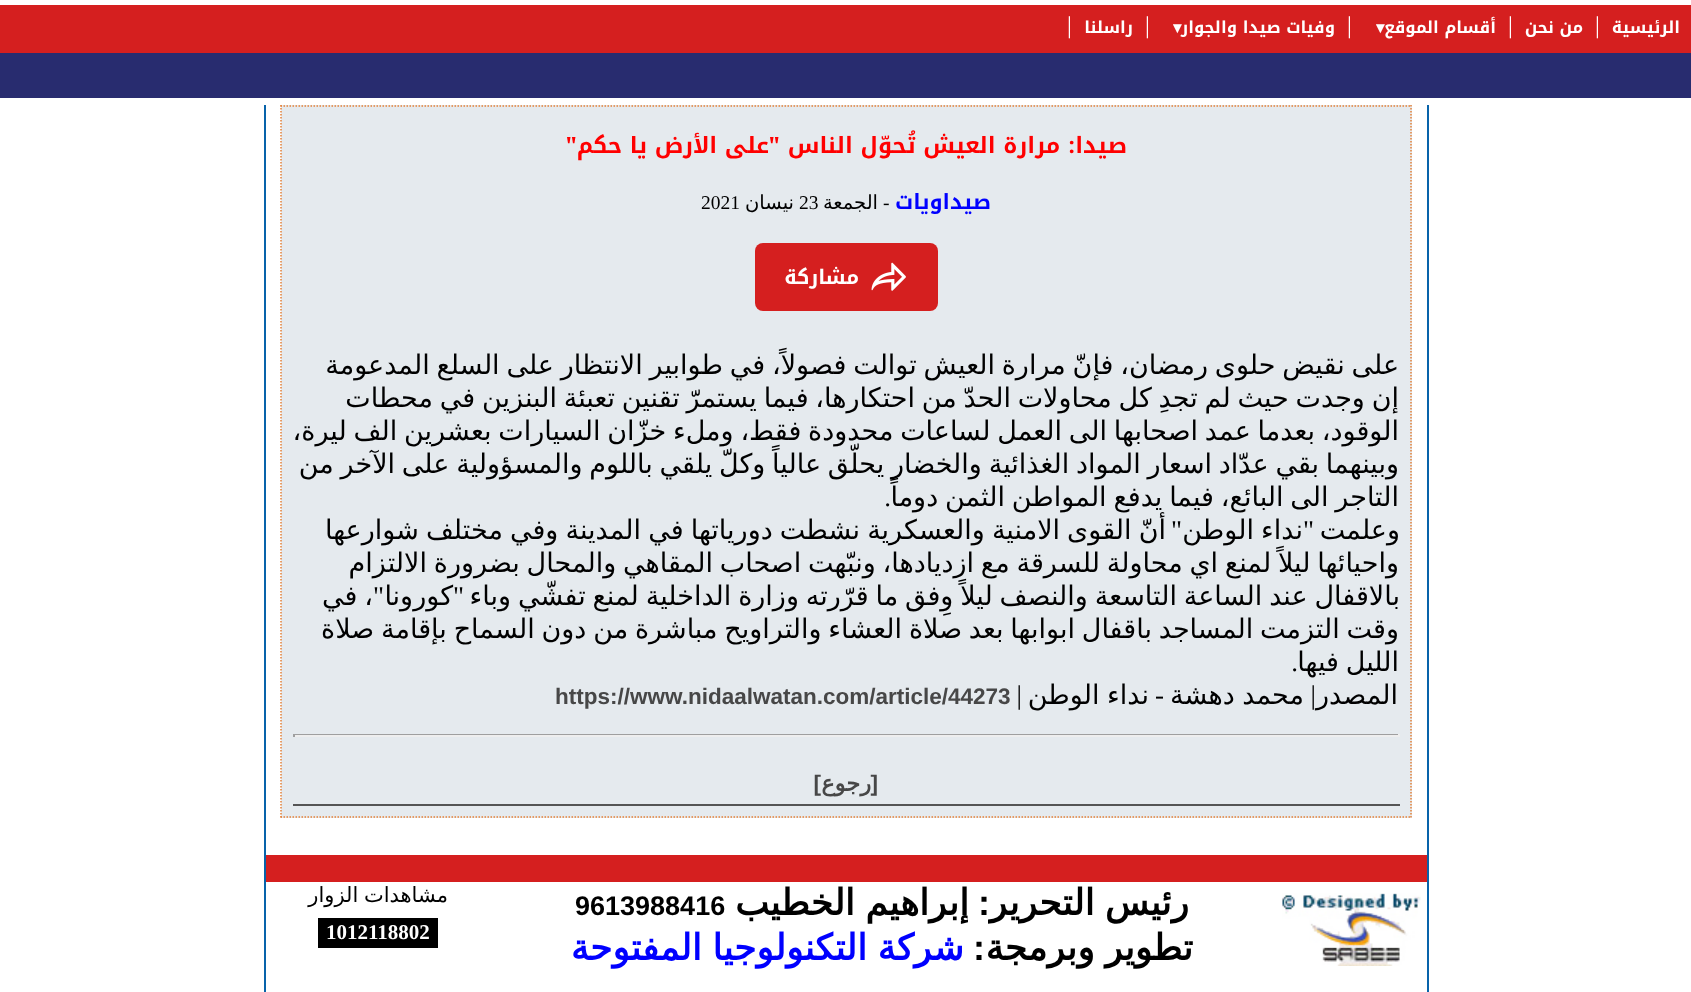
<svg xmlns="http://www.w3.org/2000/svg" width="1691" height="992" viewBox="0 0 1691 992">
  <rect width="100%" height="100%" fill="#fff"/>
  <path d="M0 5h1691v48H0z" fill="#d51f1f"/>
  <path d="M0 53h1691v45H0z" fill="#282c6f"/>
  <path d="M1427 105h2v887H1427z" fill="#0863aa"/>
  <path d="M264 105h2v887H264z" fill="#0863aa"/>
  <path d="M281 105h1131v713H281z" fill="#e5eaee"/>
  <path d="M280.5 106H1411.5" fill="none" stroke="#e48139" stroke-width="1.5" stroke-dasharray="1.5 1.5"/>
  <path d="M1411 105V817.5" fill="none" stroke="#e48139" stroke-width="1.5" stroke-dasharray="1.5 1.5"/>
  <path d="M280.5 817H1411.5" fill="none" stroke="#e48139" stroke-width="1.5" stroke-dasharray="1.5 1.5"/>
  <path d="M281 105V817.5" fill="none" stroke="#e48139" stroke-width="1.5" stroke-dasharray="1.5 1.5"/>
  <rect x="755" y="243" width="183" height="68" rx="8" fill="#d51f1f"/>
  <image x="871" y="262" width="35" height="29" href="img/1.png"/>
  <path d="M293 734h1107v1H293z" fill="#9f9f9f"/>
  <path d="M1398 734h2v3H1398z" fill="#eee"/>
  <path d="M293 735h1107v2H293z" fill="#eee"/>
  <path d="M293 734h2v3H293z" fill="#9f9f9f"/>
  <path d="M293 804h1107v2H293z" fill="#555"/>
  <path d="M266 855h1161v27H266z" fill="#d51f1f"/>
  <image x="1282" y="893" width="139" height="73" href="img/2.png"/>
  <path d="M318 918h120v30H318z" fill="#000"/>
  <text x="1680" y="33" font-family="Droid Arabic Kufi" font-size="16.5" font-weight="bold" direction="rtl" fill="#fff">الرئيسية</text>
  <text x="1595" y="33" font-family="Liberation Serif" font-size="24" fill="#fff">|</text>
  <text x="1583" y="33" font-family="Droid Arabic Kufi" font-size="16.5" font-weight="bold" direction="rtl" fill="#fff">من نحن</text>
  <text x="1508" y="33" font-family="Liberation Serif" font-size="24" fill="#fff">|</text>
  <text x="1496" y="33" font-family="Droid Arabic Kufi" font-size="16.5" font-weight="bold" direction="rtl" fill="#fff">أقسام الموقع</text>
  <text x="1376" y="33" font-family="DejaVu Sans" font-size="16.5" font-weight="bold" fill="#fff">▾</text>
  <text x="1347" y="33" font-family="Liberation Serif" font-size="24" fill="#fff">|</text>
  <text x="1335" y="33" font-family="Droid Arabic Kufi" font-size="16.5" font-weight="bold" direction="rtl" fill="#fff">وفيات صيدا والجوار</text>
  <text x="1173" y="33" font-family="DejaVu Sans" font-size="16.5" font-weight="bold" fill="#fff">▾</text>
  <text x="1145" y="33" font-family="Liberation Serif" font-size="24" fill="#fff">|</text>
  <text x="1133" y="33" font-family="Droid Arabic Kufi" font-size="16.5" font-weight="bold" direction="rtl" fill="#fff">راسلنا</text>
  <text x="1067" y="33" font-family="Liberation Serif" font-size="24" fill="#fff">|</text>
  <text x="1127" y="153" font-family="Droid Arabic Kufi" font-size="22.5" font-weight="bold" direction="rtl" fill="#f00">صيدا</text>
  <text x="1075" y="153" font-family="Noto Serif" font-size="22.5" font-weight="bold" direction="rtl" fill="#f00">:</text>
  <text x="1060" y="153" font-family="Droid Arabic Kufi" font-size="22.5" font-weight="bold" direction="rtl" fill="#f00">مرارة العيش تُحوّل الناس</text>
  <text x="780" y="153" font-family="Noto Serif" font-size="22.5" font-weight="bold" direction="rtl" fill="#f00">"</text>
  <text x="769" y="153" font-family="Droid Arabic Kufi" font-size="22.5" font-weight="bold" direction="rtl" fill="#f00">على الأرض يا حكم</text>
  <text x="577" y="153" font-family="Noto Serif" font-size="22.5" font-weight="bold" direction="rtl" fill="#f00">"</text>
  <text x="991" y="209" font-family="Droid Arabic Kufi" font-size="21" font-weight="bold" direction="rtl" fill="#00f">صيداويات</text>
  <text x="883" y="209" font-family="Liberation Serif" font-size="19.5" fill="#000">-</text>
  <text x="878" y="209" font-family="DejaVu Sans" font-size="19.5" direction="rtl" fill="#000">الجمعة</text>
  <text x="799" y="209" font-family="Liberation Serif" font-size="19.5" fill="#000">23</text>
  <text x="794" y="209" font-family="DejaVu Sans" font-size="19.5" direction="rtl" fill="#000">نيسان</text>
  <text x="701" y="209" font-family="Liberation Serif" font-size="19.5" fill="#000">2021</text>
  <text x="859" y="284" font-family="Droid Arabic Kufi" font-size="20" font-weight="bold" direction="rtl" fill="#fff">مشاركة</text>
  <g font-family="DejaVu Sans" font-size="27" direction="rtl" fill="#000">
    <text x="1399" y="374" word-spacing="-1.8">على نقيض حلوى رمضان، فإنّ مرارة العيش توالت فصولاً، في طوابير الانتظار على السلع المدعومة</text>
    <text x="1399" y="407" word-spacing="-1.8">إن وجدت حيث لم تجدِ كل محاولات الحدّ من احتكارها، فيما يستمرّ تقنين تعبئة البنزين في محطات</text>
    <text x="1399" y="440" word-spacing="-1.8">الوقود، بعدما عمد اصحابها الى العمل لساعات محدودة فقط، وملء خزّان السيارات بعشرين الف ليرة،</text>
    <text x="1399" y="473" word-spacing="-1.8">وبينهما بقي عدّاد اسعار المواد الغذائية والخضار يحلّق عالياً وكلّ يلقي باللوم والمسؤولية على الآخر من</text>
    <text x="1399" y="506" word-spacing="-1.8">التاجر الى البائع، فيما يدفع المواطن الثمن دوماً</text>
  </g>
  <text x="891" y="506" font-family="Liberation Serif" font-size="27" direction="rtl" fill="#000">.</text>
  <g font-family="DejaVu Sans" font-size="27" direction="rtl" fill="#000">
    <text x="1400" y="539">وعلمت</text>
    <text x="1303" y="539" word-spacing="-1.5">نداء الوطن</text>
    <text x="1166" y="539" word-spacing="-1.5">أنّ القوى الامنية والعسكرية نشطت دورياتها في المدينة وفي مختلف شوارعها</text>
  </g>
  <g font-family="Liberation Serif" font-size="27" direction="rtl" fill="#000">
    <text x="1314" y="539">"</text>
    <text x="1182" y="539">"</text>
  </g>
  <g font-family="DejaVu Sans" font-size="27" direction="rtl" fill="#000">
    <text x="1399" y="572" word-spacing="-1.8">واحيائها ليلاً لمنع اي محاولة للسرقة مع ازديادها، ونبّهت اصحاب المقاهي والمحال بضرورة الالتزام</text>
    <text x="1400" y="605" word-spacing="-1.75">بالاقفال عند الساعة التاسعة والنصف ليلاً وِفق ما قرّرته وزارة الداخلية لمنع تفشّي وباء</text>
  </g>
  <text x="464" y="605" font-family="Liberation Serif" font-size="27" direction="rtl" fill="#000">"</text>
  <text x="453" y="605" font-family="DejaVu Sans" font-size="27" direction="rtl" fill="#000">كورونا</text>
  <text x="384" y="605" font-family="Liberation Serif" font-size="27" direction="rtl" fill="#000">"</text>
  <g font-family="DejaVu Sans" font-size="27" direction="rtl" fill="#000">
    <text x="373" y="605" word-spacing="-1.75">، في</text>
    <text x="1399" y="638" word-spacing="-1.8">وقت التزمت المساجد باقفال ابوابها بعد صلاة العشاء والتراويح مباشرة من دون السماح بإقامة صلاة</text>
    <text x="1399" y="671" word-spacing="-1.8">الليل فيها</text>
  </g>
  <text x="1298" y="671" font-family="Liberation Serif" font-size="27" direction="rtl" fill="#000">.</text>
  <text x="1398" y="704" font-family="DejaVu Sans" font-size="27" direction="rtl" fill="#000">المصدر</text>
  <text x="1316" y="704" font-family="Liberation Serif" font-size="27" direction="rtl" fill="#000">|</text>
  <text x="1304" y="704" word-spacing="-1" font-family="DejaVu Sans" font-size="27" direction="rtl" fill="#000">محمد دهشة</text>
  <text x="1164" y="704" font-family="Liberation Serif" font-size="27" direction="rtl" fill="#000">-</text>
  <text x="1149" y="704" word-spacing="-1" font-family="DejaVu Sans" font-size="27" direction="rtl" fill="#000">نداء الوطن</text>
  <text x="1022" y="704" font-family="Liberation Serif" font-size="27" direction="rtl" fill="#000">|</text>
  <text x="555" y="704" font-family="Liberation Sans" font-size="22.5" font-weight="bold" fill="#474747">https://www.nidaalwatan.com/article/44273</text>
  <text x="878" y="791" font-family="Liberation Sans" font-size="22.5" font-weight="bold" direction="rtl" fill="#474747">[</text>
  <text x="871" y="791" font-family="DejaVu Sans" font-size="22.5" font-weight="bold" direction="rtl" fill="#474747">رجوع</text>
  <text x="821" y="791" font-family="Liberation Sans" font-size="22.5" font-weight="bold" direction="rtl" fill="#474747">]</text>
  <text x="1189" y="915" word-spacing="-1" font-family="DejaVu Sans" font-size="36" font-weight="bold" direction="rtl" fill="#000">رئيس التحرير</text>
  <text x="990" y="915" font-family="Liberation Sans" font-size="36" font-weight="bold" direction="rtl" fill="#000">:</text>
  <text x="969" y="915" word-spacing="-1" font-family="DejaVu Sans" font-size="36" font-weight="bold" direction="rtl" fill="#000">إبراهيم الخطيب</text>
  <text x="575" y="915" font-family="Liberation Sans" font-size="27" font-weight="bold" fill="#000">9613988416</text>
  <text x="1193" y="960" word-spacing="-1" font-family="DejaVu Sans" font-size="36" font-weight="bold" direction="rtl" fill="#000">تطوير وبرمجة</text>
  <text x="985" y="960" font-family="Liberation Sans" font-size="36" font-weight="bold" direction="rtl" fill="#000">:</text>
  <text x="964" y="960" word-spacing="-1" font-family="DejaVu Sans" font-size="36" font-weight="bold" direction="rtl" fill="#00f">شركة التكنولوجيا المفتوحة</text>
  <text x="448" y="902" word-spacing="-1" font-family="DejaVu Sans" font-size="21" direction="rtl" fill="#000">مشاهدات الزوار</text>
  <text x="326" y="939" font-family="Liberation Serif" font-size="21" font-weight="bold" fill="#fff">1012118802</text>
</svg>
